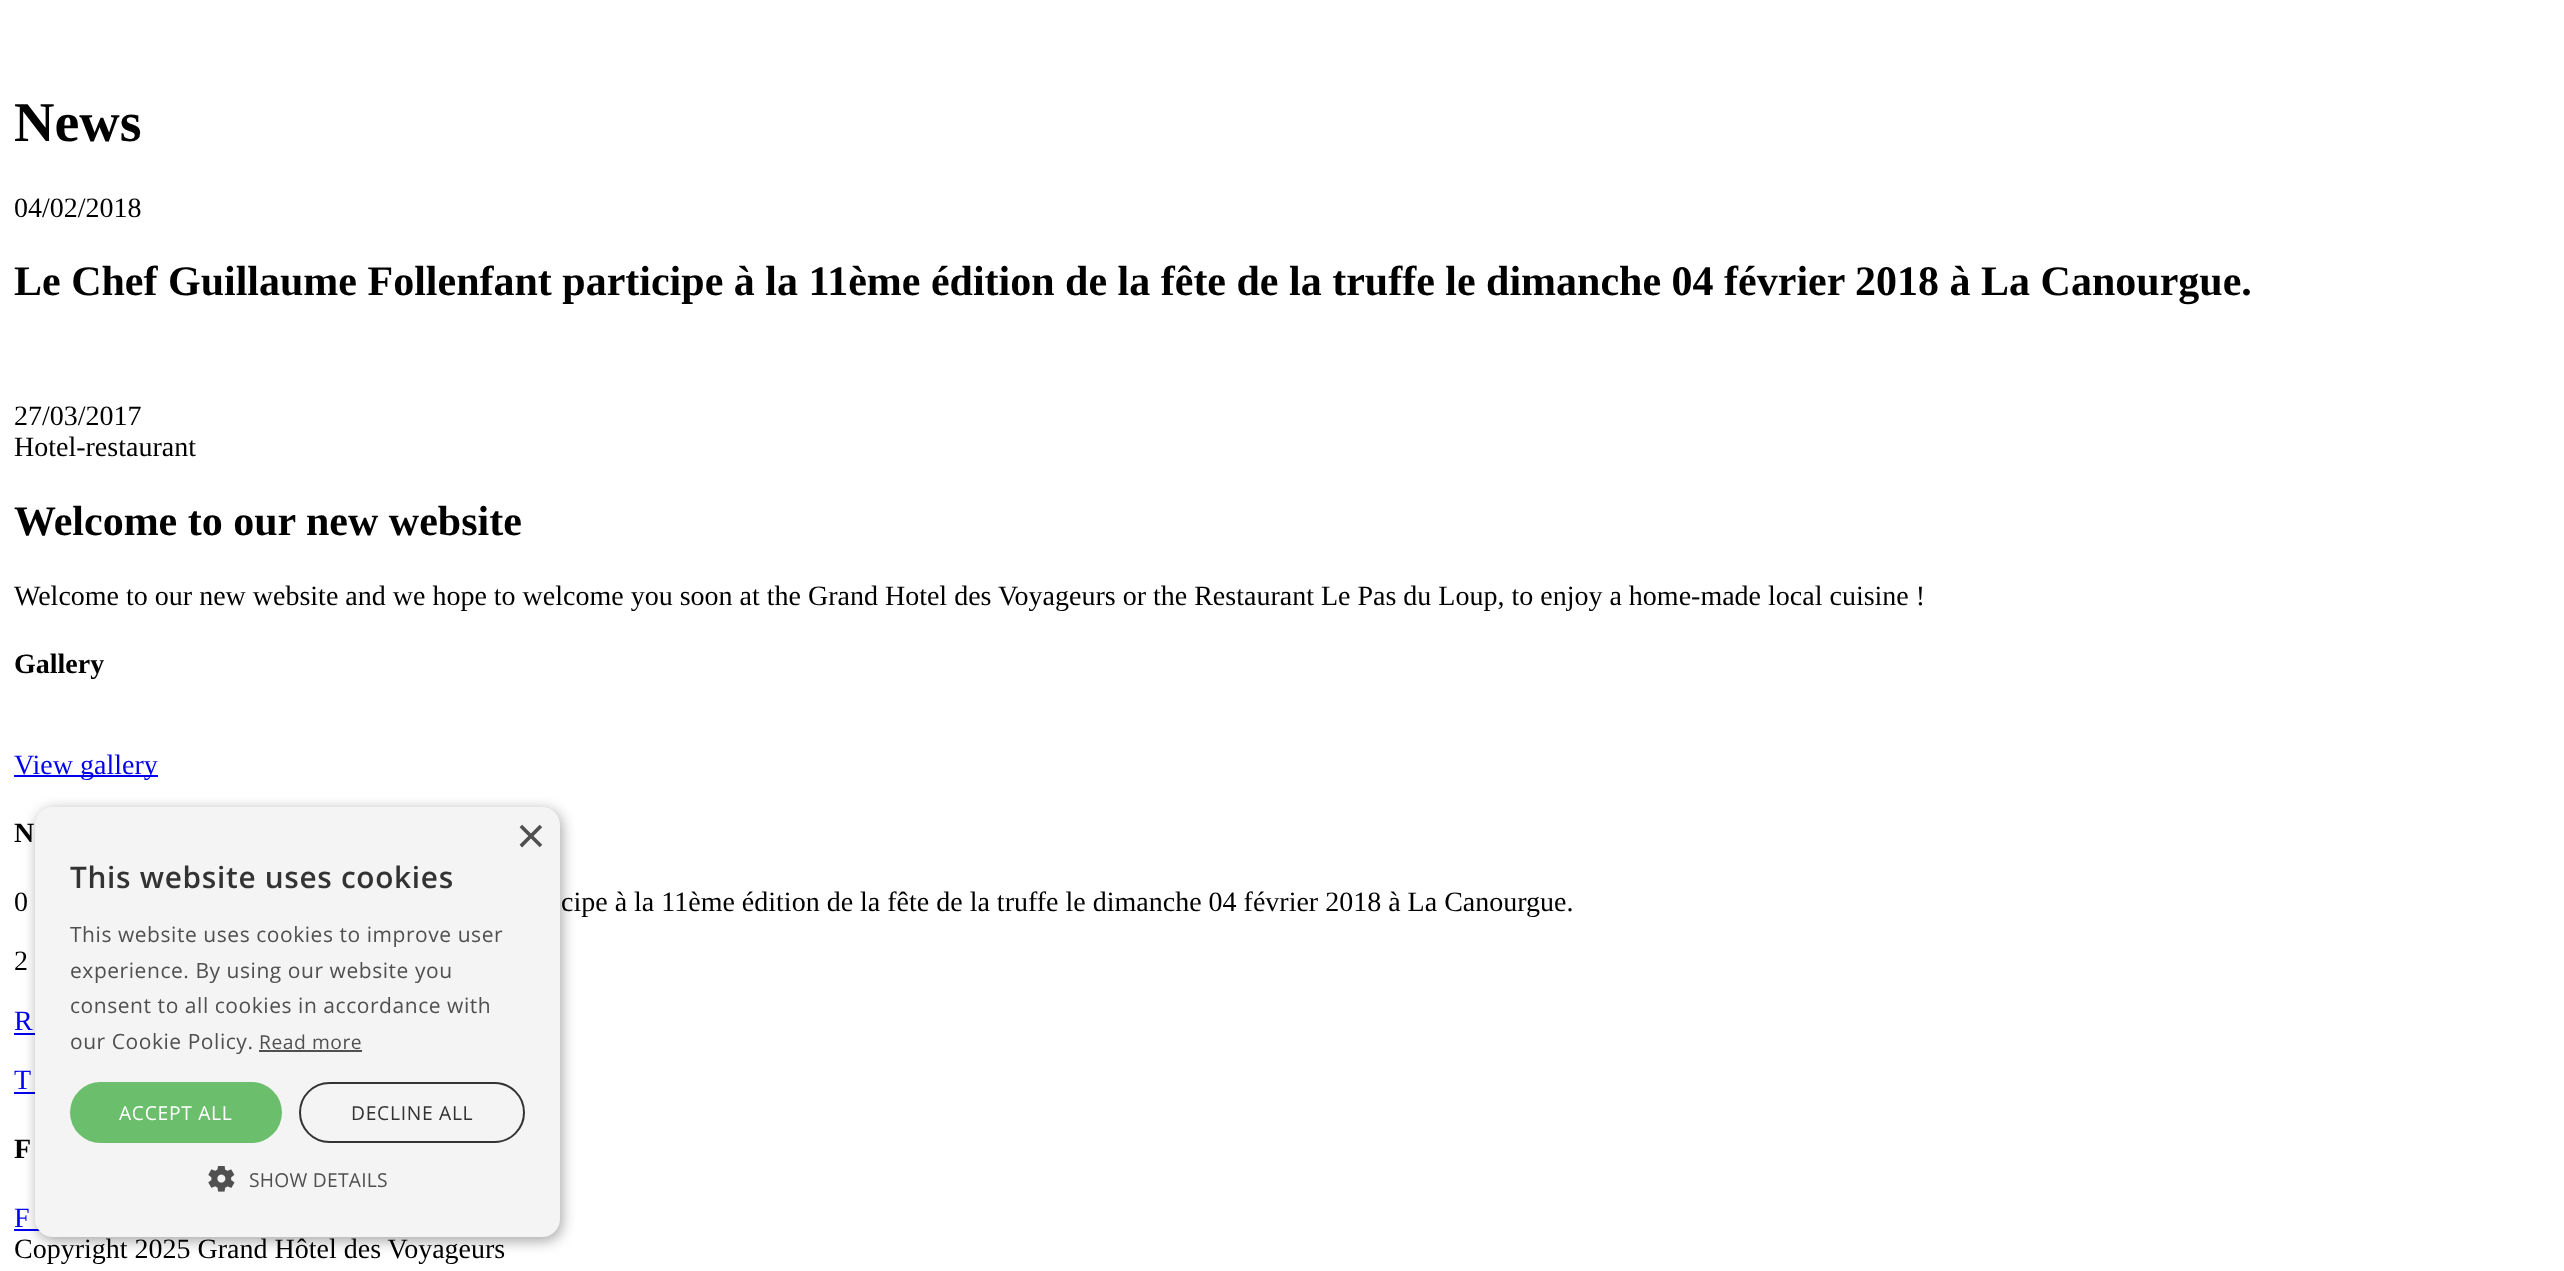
<svg xmlns="http://www.w3.org/2000/svg" width="2564" height="1271" viewBox="0 0 2564 1271">
  <rect width="100%" height="100%" fill="#fff"/>
  <path d="M14 775h144v2H14z" fill="#00e"/>
  <path d="M14 1033h21v2H14z" fill="#00e"/>
  <path d="M14 1092h21v2H14z" fill="#00e"/>
  <path d="M14 1229h26v2H14z" fill="#00e"/>
  <rect x="37" y="810" width="525" height="431" rx="18" fill="#00000059" filter="blur(7px)"/>
  <rect x="35" y="807" width="525" height="430" rx="18" fill="#f4f4f4"/>
  <path d="M259 1050h103v2H259z" fill="#505050"/>
  <rect x="70" y="1082" width="212" height="61" rx="30.5" fill="#6bbe6b"/>
  <rect x="300" y="1083" width="224" height="59" rx="29.5" fill="none" stroke="#333" stroke-width="2"/>
  <image x="208" y="1166" width="27" height="26" href="img/1.png"/>
  <text x="14" y="141" font-family="Liberation Serif" font-size="56" font-weight="bold" fill="#000">News</text>
  <text x="14" y="217" font-family="Liberation Serif" font-size="28" fill="#000">04/02/2018</text>
  <text x="14" y="295" font-family="Liberation Serif" font-size="42" font-weight="bold" fill="#000">Le Chef Guillaume Follenfant participe à la 11ème édition de la fête de la truffe le dimanche 04 février 2018 à La Canourgue.</text>
  <g font-family="Liberation Serif" font-size="28" fill="#000">
    <text x="14" y="425">27/03/2017</text>
    <text x="14" y="456">Hotel-restaurant</text>
  </g>
  <text x="14" y="535" font-family="Liberation Serif" font-size="42" font-weight="bold" fill="#000">Welcome to our new website</text>
  <text x="14" y="605" font-family="Liberation Serif" font-size="28" fill="#000">Welcome to our new website and we hope to welcome you soon at the Grand Hotel des Voyageurs or the Restaurant Le Pas du Loup, to enjoy a home-made local cuisine !</text>
  <text x="14" y="673" font-family="Liberation Serif" font-size="28" font-weight="bold" fill="#000">Gallery</text>
  <text x="14" y="774" font-family="Liberation Serif" font-size="28" fill="#00e">View gallery</text>
  <text x="14" y="842" font-family="Liberation Serif" font-size="28" font-weight="bold" fill="#000">N</text>
  <g font-family="Liberation Serif" font-size="28" fill="#000">
    <text x="14" y="911">0</text>
    <text x="561" y="911">cipe à la 11ème édition de la fête de la truffe le dimanche 04 février 2018 à La Canourgue.</text>
    <text x="14" y="970">2</text>
  </g>
  <g font-family="Liberation Serif" font-size="28" fill="#00e">
    <text x="14" y="1030">R</text>
    <text x="14" y="1089">T</text>
  </g>
  <text x="14" y="1158" font-family="Liberation Serif" font-size="28" font-weight="bold" fill="#000">F</text>
  <text x="14" y="1227" font-family="Liberation Serif" font-size="28" fill="#00e">F</text>
  <text x="14" y="1258" font-family="Liberation Serif" font-size="28" fill="#000">Copyright 2025 Grand Hôtel des Voyageurs</text>
  <text x="516" y="853" font-family="Liberation Sans" font-size="51" fill="#505050">×</text>
  <text x="70" y="888" font-family="Open Sans" font-size="29.75" font-weight="600" letter-spacing="0.7" fill="#333">This website uses cookies</text>
  <g font-family="Open Sans" font-size="21" letter-spacing="0.55" fill="#505050">
    <text x="70" y="942">This website uses cookies to improve user</text>
    <text x="70" y="978">experience. By using our website you</text>
    <text x="70" y="1013">consent to all cookies in accordance with</text>
    <text x="70" y="1049">our Cookie Policy.</text>
  </g>
  <text x="259" y="1049" font-family="Open Sans" font-size="19.25" letter-spacing="0.55" fill="#505050">Read more</text>
  <text x="119" y="1120" font-family="Open Sans" font-size="19.25" letter-spacing="0.7" fill="#fff">ACCEPT ALL</text>
  <text x="351" y="1120" font-family="Open Sans" font-size="19.25" letter-spacing="0.7" fill="#333">DECLINE ALL</text>
  <text x="249" y="1187" font-family="Open Sans" font-size="19.25" letter-spacing="0.25" fill="#505050">SHOW DETAILS</text>
</svg>
